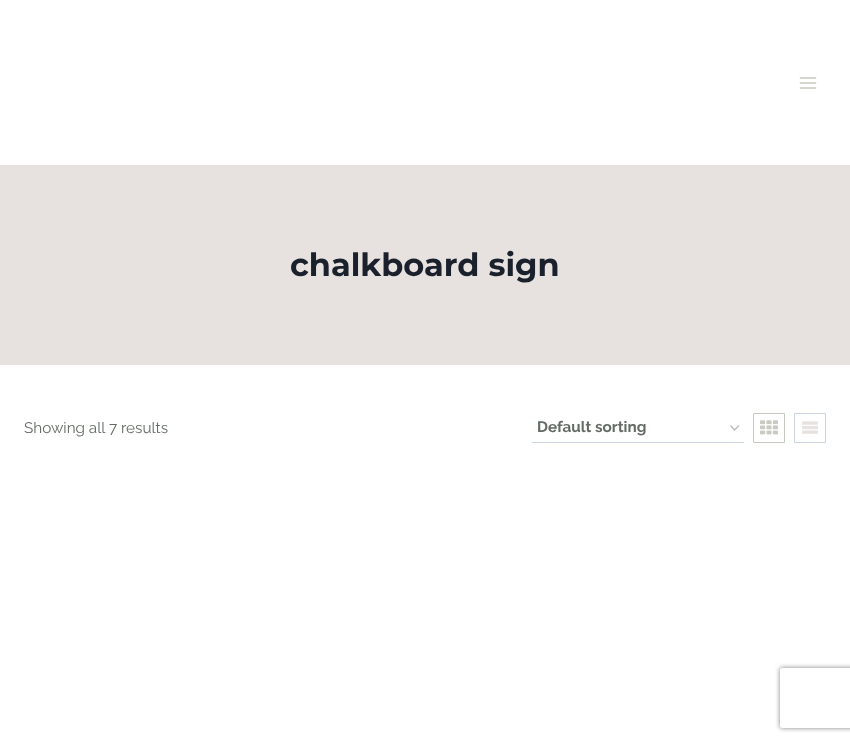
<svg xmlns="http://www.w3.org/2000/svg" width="850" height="742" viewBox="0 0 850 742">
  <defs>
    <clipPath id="clip1"><path d="M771 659H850V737H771ZM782 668H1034C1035 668 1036 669 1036 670V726C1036 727 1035 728 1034 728H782C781 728 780 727 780 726V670C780 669 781 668 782 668Z" clip-rule="evenodd"/></clipPath>
  </defs>
  <rect width="100%" height="100%" fill="#fff"/>
  <image x="799" y="77" width="18" height="12" href="img/1.png"/>
  <path d="M0 165h850v200H0z" fill="#e7e2df"/>
  <path d="M730.5 425.5L734.5 430L739 425.5" fill="none" stroke="#bbb" stroke-width="1.4"/>
  <path d="M532 442h212v1H532z" fill="#cbd5e0"/>
  <path d="M753.5 413.5h31v29H753.5z" fill="none" stroke="#c9cac2"/>
  <image x="760" y="420" width="18" height="15" href="img/2.png"/>
  <path d="M794.5 413.5h31v29H794.5z" fill="none" stroke="#cbd5e0"/>
  <image x="802" y="421" width="16" height="13" href="img/3.png"/>
  <g clip-path="url(#clip1)">
    <rect x="780" y="668" width="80" height="60" rx="2" fill="#808080" filter="blur(2.5px)"/>
  </g>
  <text x="290" y="276" font-family="Montserrat" font-size="32" font-weight="100" fill="#1a202c">chalkboard sign</text>
  <text x="24" y="433" font-family="Raleway" font-size="15.25" font-weight="100" fill="#626c64">Showing all 7 results</text>
  <text x="537" y="432" font-family="Raleway" font-size="15.25" font-weight="bold" fill="#626c64">Default sorting</text>
</svg>
